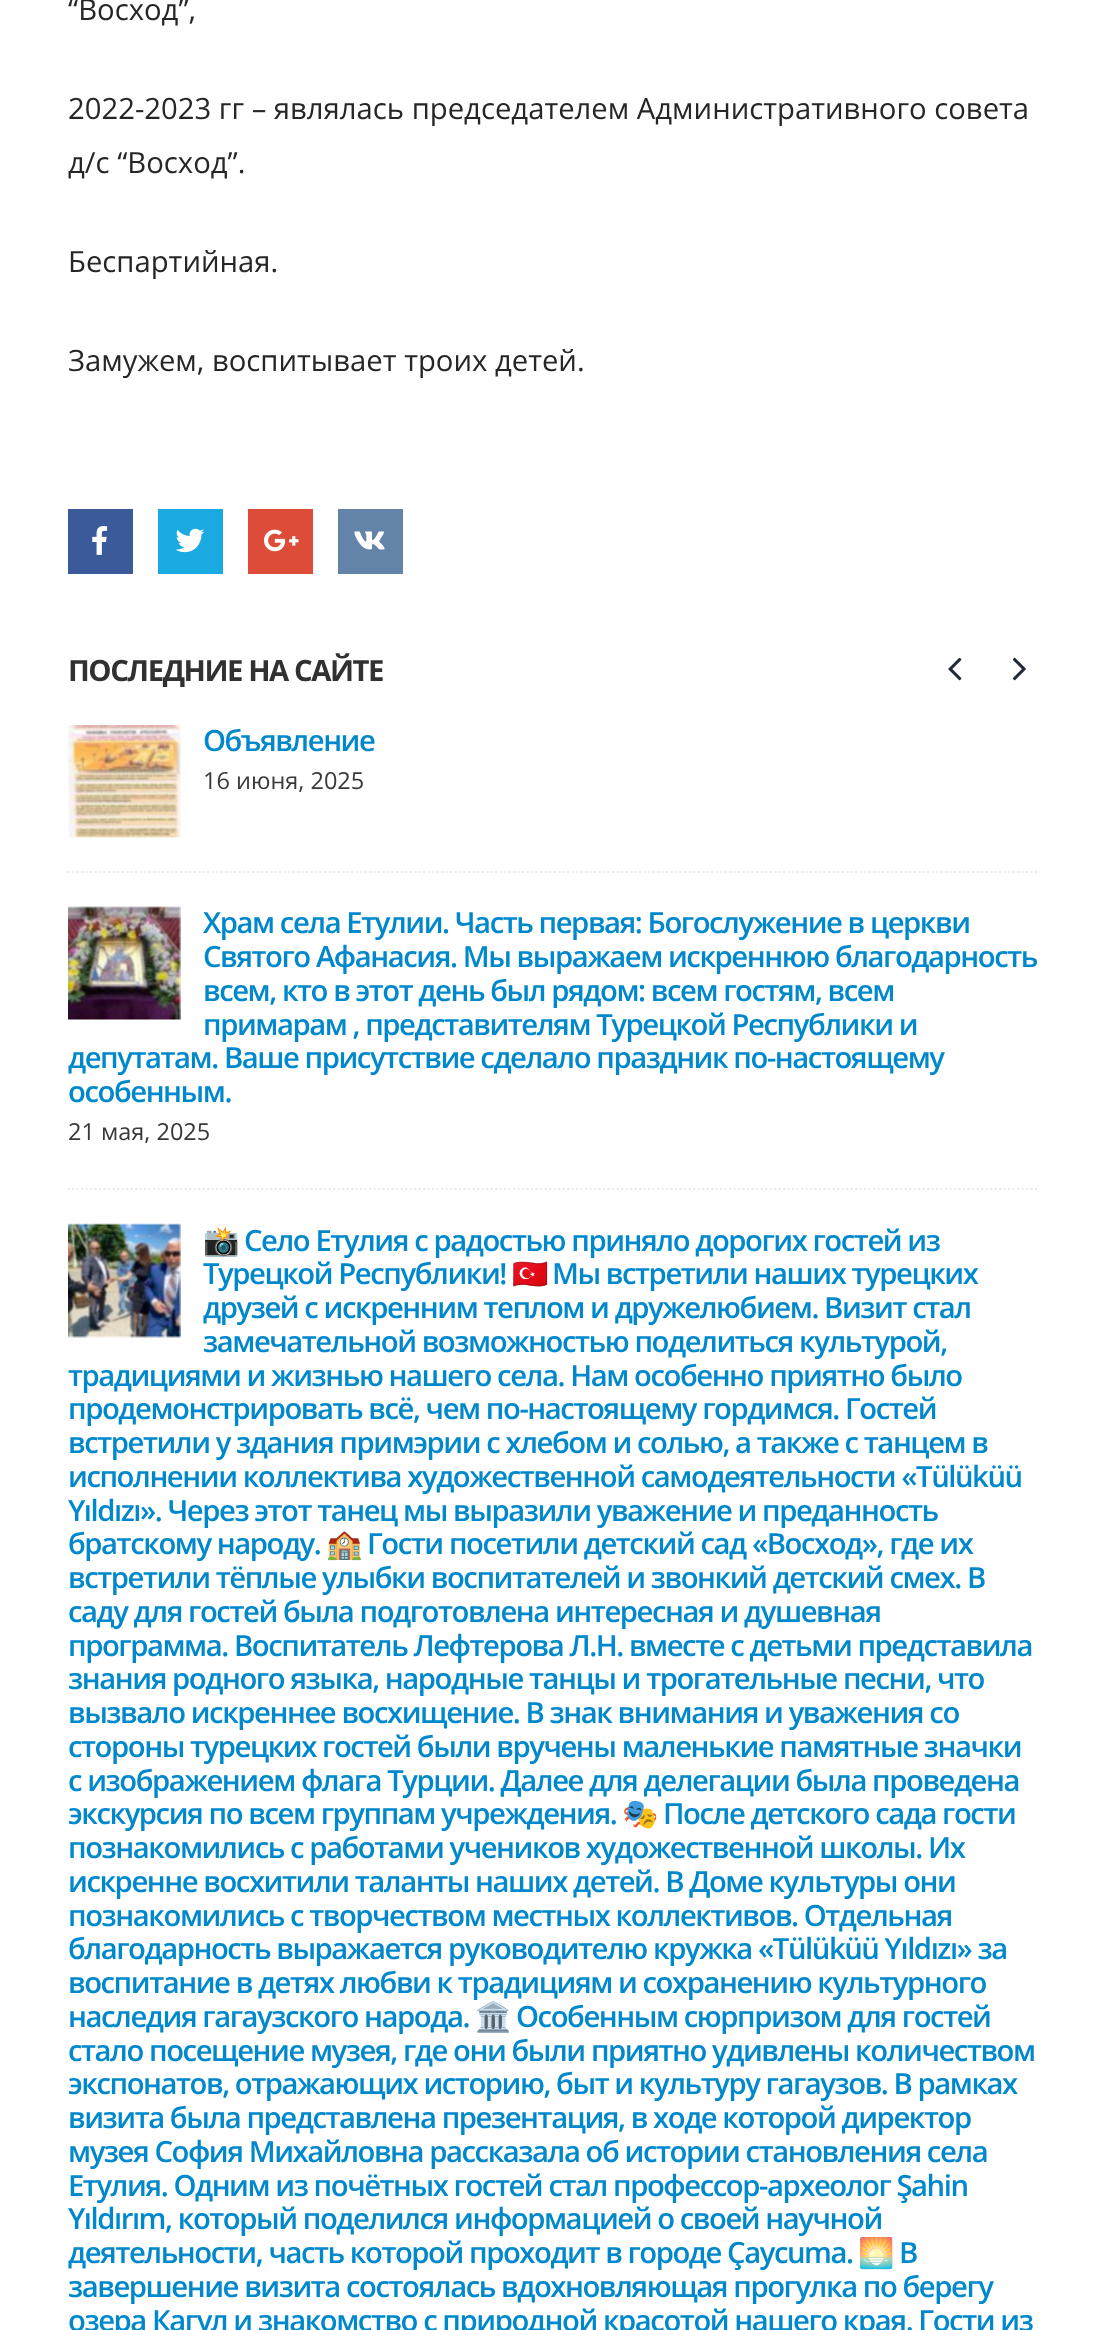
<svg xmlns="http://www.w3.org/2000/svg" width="1104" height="2330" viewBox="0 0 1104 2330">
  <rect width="100%" height="100%" fill="#fff"/>
  <path d="M68 509h65v65H68z" fill="#3b5a9a"/>
  <image x="92" y="526" width="16" height="29" href="img/1.png"/>
  <path d="M158 509h65v65H158z" fill="#1aa9e1"/>
  <image x="175" y="528" width="30" height="25" href="img/2.png"/>
  <path d="M248 509h65v65H248z" fill="#dd4b39"/>
  <image x="264" y="529" width="35" height="23" href="img/3.png"/>
  <path d="M338 509h65v65H338z" fill="#6383a8"/>
  <image x="354" y="531" width="31" height="19" href="img/4.png"/>
  <image x="948" y="657" width="14" height="24" href="img/5.png"/>
  <image x="1012" y="657" width="14" height="24" href="img/6.png"/>
  <image x="68" y="725" width="113" height="113" href="img/7.png"/>
  <path d="M67.5 872H1037" fill="none" stroke="#ececec" stroke-width="2.2" stroke-dasharray="2.25 2.25"/>
  <image x="68" y="906" width="113" height="114" href="img/8.png"/>
  <path d="M67.5 1189H1037" fill="none" stroke="#ececec" stroke-width="2.2" stroke-dasharray="2.25 2.25"/>
  <image x="68" y="1223" width="113" height="115" href="img/9.png"/>
  <g font-family="Open Sans" font-size="29.25" fill="#262626">
    <text x="68" y="20">“Восход”,</text>
    <text x="68" y="119">2022-2023 гг – являлась председателем Административного совета</text>
    <text x="68" y="173">д/с “Восход”.</text>
    <text x="68" y="272">Беспартийная.</text>
    <text x="68" y="371">Замужем, воспитывает троих детей.</text>
  </g>
  <text x="68" y="681" font-family="Open Sans" font-size="29.25" font-weight="bold" letter-spacing="-1.45" fill="#313131">ПОСЛЕДНИЕ НА САЙТЕ</text>
  <text x="203" y="751" font-family="Open Sans" font-size="29.25" font-weight="600" letter-spacing="-1.45" fill="#08c">Объявление</text>
  <text x="203" y="789" font-family="Open Sans" font-size="23.5" fill="#383838">16 июня, 2025</text>
  <g font-family="Open Sans" font-size="29.25" font-weight="600" letter-spacing="-1.45" fill="#08c">
    <text x="203" y="933">Храм села Етулии. Часть первая: Богослужение в церкви</text>
    <text x="203" y="967">Святого Афанасия. Мы выражаем искреннюю благодарность</text>
    <text x="203" y="1001">всем, кто в этот день был рядом: всем гостям, всем</text>
    <text x="203" y="1035">примарам , представителям Турецкой Республики и</text>
    <text x="68" y="1068">депутатам. Ваше присутствие сделало праздник по-настоящему</text>
    <text x="68" y="1102">особенным.</text>
  </g>
  <text x="68" y="1140" font-family="Open Sans" font-size="23.5" fill="#383838">21 мая, 2025</text>
  <text x="203" y="1251" font-family="Noto Color Emoji" font-size="29.25" font-weight="bold" letter-spacing="-1.45" fill="#08c">📸</text>
  <g font-family="Open Sans" font-size="29.25" font-weight="600" letter-spacing="-1.45" fill="#08c">
    <text x="244" y="1251">Село Етулия с радостью приняло дорогих гостей из</text>
    <text x="203" y="1284">Турецкой Республики!</text>
  </g>
  <text x="512" y="1284" font-family="Noto Color Emoji" font-size="29.25" font-weight="bold" letter-spacing="-1.45" fill="#08c">🇹🇷</text>
  <g font-family="Open Sans" font-size="29.25" font-weight="600" letter-spacing="-1.45" fill="#08c">
    <text x="552" y="1284">Мы встретили наших турецких</text>
    <text x="203" y="1318">друзей с искренним теплом и дружелюбием. Визит стал</text>
    <text x="203" y="1352">замечательной возможностью поделиться культурой,</text>
    <text x="68" y="1386">традициями и жизнью нашего села. Нам особенно приятно было</text>
    <text x="68" y="1419">продемонстрировать всё, чем по-настоящему гордимся. Гостей</text>
    <text x="68" y="1453">встретили у здания примэрии с хлебом и солью, а также с танцем в</text>
    <text x="68" y="1487">исполнении коллектива художественной самодеятельности «Tülüküü</text>
    <text x="68" y="1521">Yıldızı». Через этот танец мы выразили уважение и преданность</text>
    <text x="68" y="1554">братскому народу.</text>
  </g>
  <text x="326" y="1554" font-family="Noto Color Emoji" font-size="29.25" font-weight="bold" letter-spacing="-1.45" fill="#08c">🏫</text>
  <g font-family="Open Sans" font-size="29.25" font-weight="600" letter-spacing="-1.45" fill="#08c">
    <text x="367" y="1554">Гости посетили детский сад «Восход», где их</text>
    <text x="68" y="1588">встретили тёплые улыбки воспитателей и звонкий детский смех. В</text>
    <text x="68" y="1622">саду для гостей была подготовлена интересная и душевная</text>
    <text x="68" y="1656">программа. Воспитатель Лефтерова Л.Н. вместе с детьми представила</text>
    <text x="68" y="1689">знания родного языка, народные танцы и трогательные песни, что</text>
    <text x="68" y="1723">вызвало искреннее восхищение. В знак внимания и уважения со</text>
    <text x="68" y="1757">стороны турецких гостей были вручены маленькие памятные значки</text>
    <text x="68" y="1791">с изображением флага Турции. Далее для делегации была проведена</text>
    <text x="68" y="1824">экскурсия по всем группам учреждения.</text>
  </g>
  <text x="622" y="1824" font-family="Noto Color Emoji" font-size="29.25" font-weight="bold" letter-spacing="-1.45" fill="#08c">🎭</text>
  <g font-family="Open Sans" font-size="29.25" font-weight="600" letter-spacing="-1.45" fill="#08c">
    <text x="663" y="1824">После детского сада гости</text>
    <text x="68" y="1858">познакомились с работами учеников художественной школы. Их</text>
    <text x="68" y="1892">искренне восхитили таланты наших детей. В Доме культуры они</text>
    <text x="68" y="1926">познакомились с творчеством местных коллективов. Отдельная</text>
    <text x="68" y="1959">благодарность выражается руководителю кружка «Tülüküü Yıldızı» за</text>
    <text x="68" y="1993">воспитание в детях любви к традициям и сохранению культурного</text>
    <text x="68" y="2027">наследия гагаузского народа.</text>
  </g>
  <text x="475" y="2027" font-family="Noto Color Emoji" font-size="29.25" font-weight="bold" letter-spacing="-1.45" fill="#08c">🏛</text>
  <g font-family="Open Sans" font-size="29.25" font-weight="600" letter-spacing="-1.45" fill="#08c">
    <text x="516" y="2027">Особенным сюрпризом для гостей</text>
    <text x="68" y="2061">стало посещение музея, где они были приятно удивлены количеством</text>
    <text x="68" y="2094">экспонатов, отражающих историю, быт и культуру гагаузов. В рамках</text>
    <text x="68" y="2128">визита была представлена презентация, в ходе которой директор</text>
    <text x="68" y="2162">музея София Михайловна рассказала об истории становления села</text>
    <text x="68" y="2196">Етулия. Одним из почётных гостей стал профессор-археолог Şahin</text>
    <text x="68" y="2229">Yıldırım, который поделился информацией о своей научной</text>
    <text x="68" y="2263">деятельности, часть которой проходит в городе Çaycuma.</text>
  </g>
  <text x="858" y="2263" font-family="Noto Color Emoji" font-size="29.25" font-weight="bold" letter-spacing="-1.45" fill="#08c">🌅</text>
  <g font-family="Open Sans" font-size="29.25" font-weight="600" letter-spacing="-1.45" fill="#08c">
    <text x="899" y="2263">В</text>
    <text x="68" y="2297">завершение визита состоялась вдохновляющая прогулка по берегу</text>
    <text x="68" y="2331">озера Кагул и знакомство с природной красотой нашего края. Гости из</text>
  </g>
</svg>
